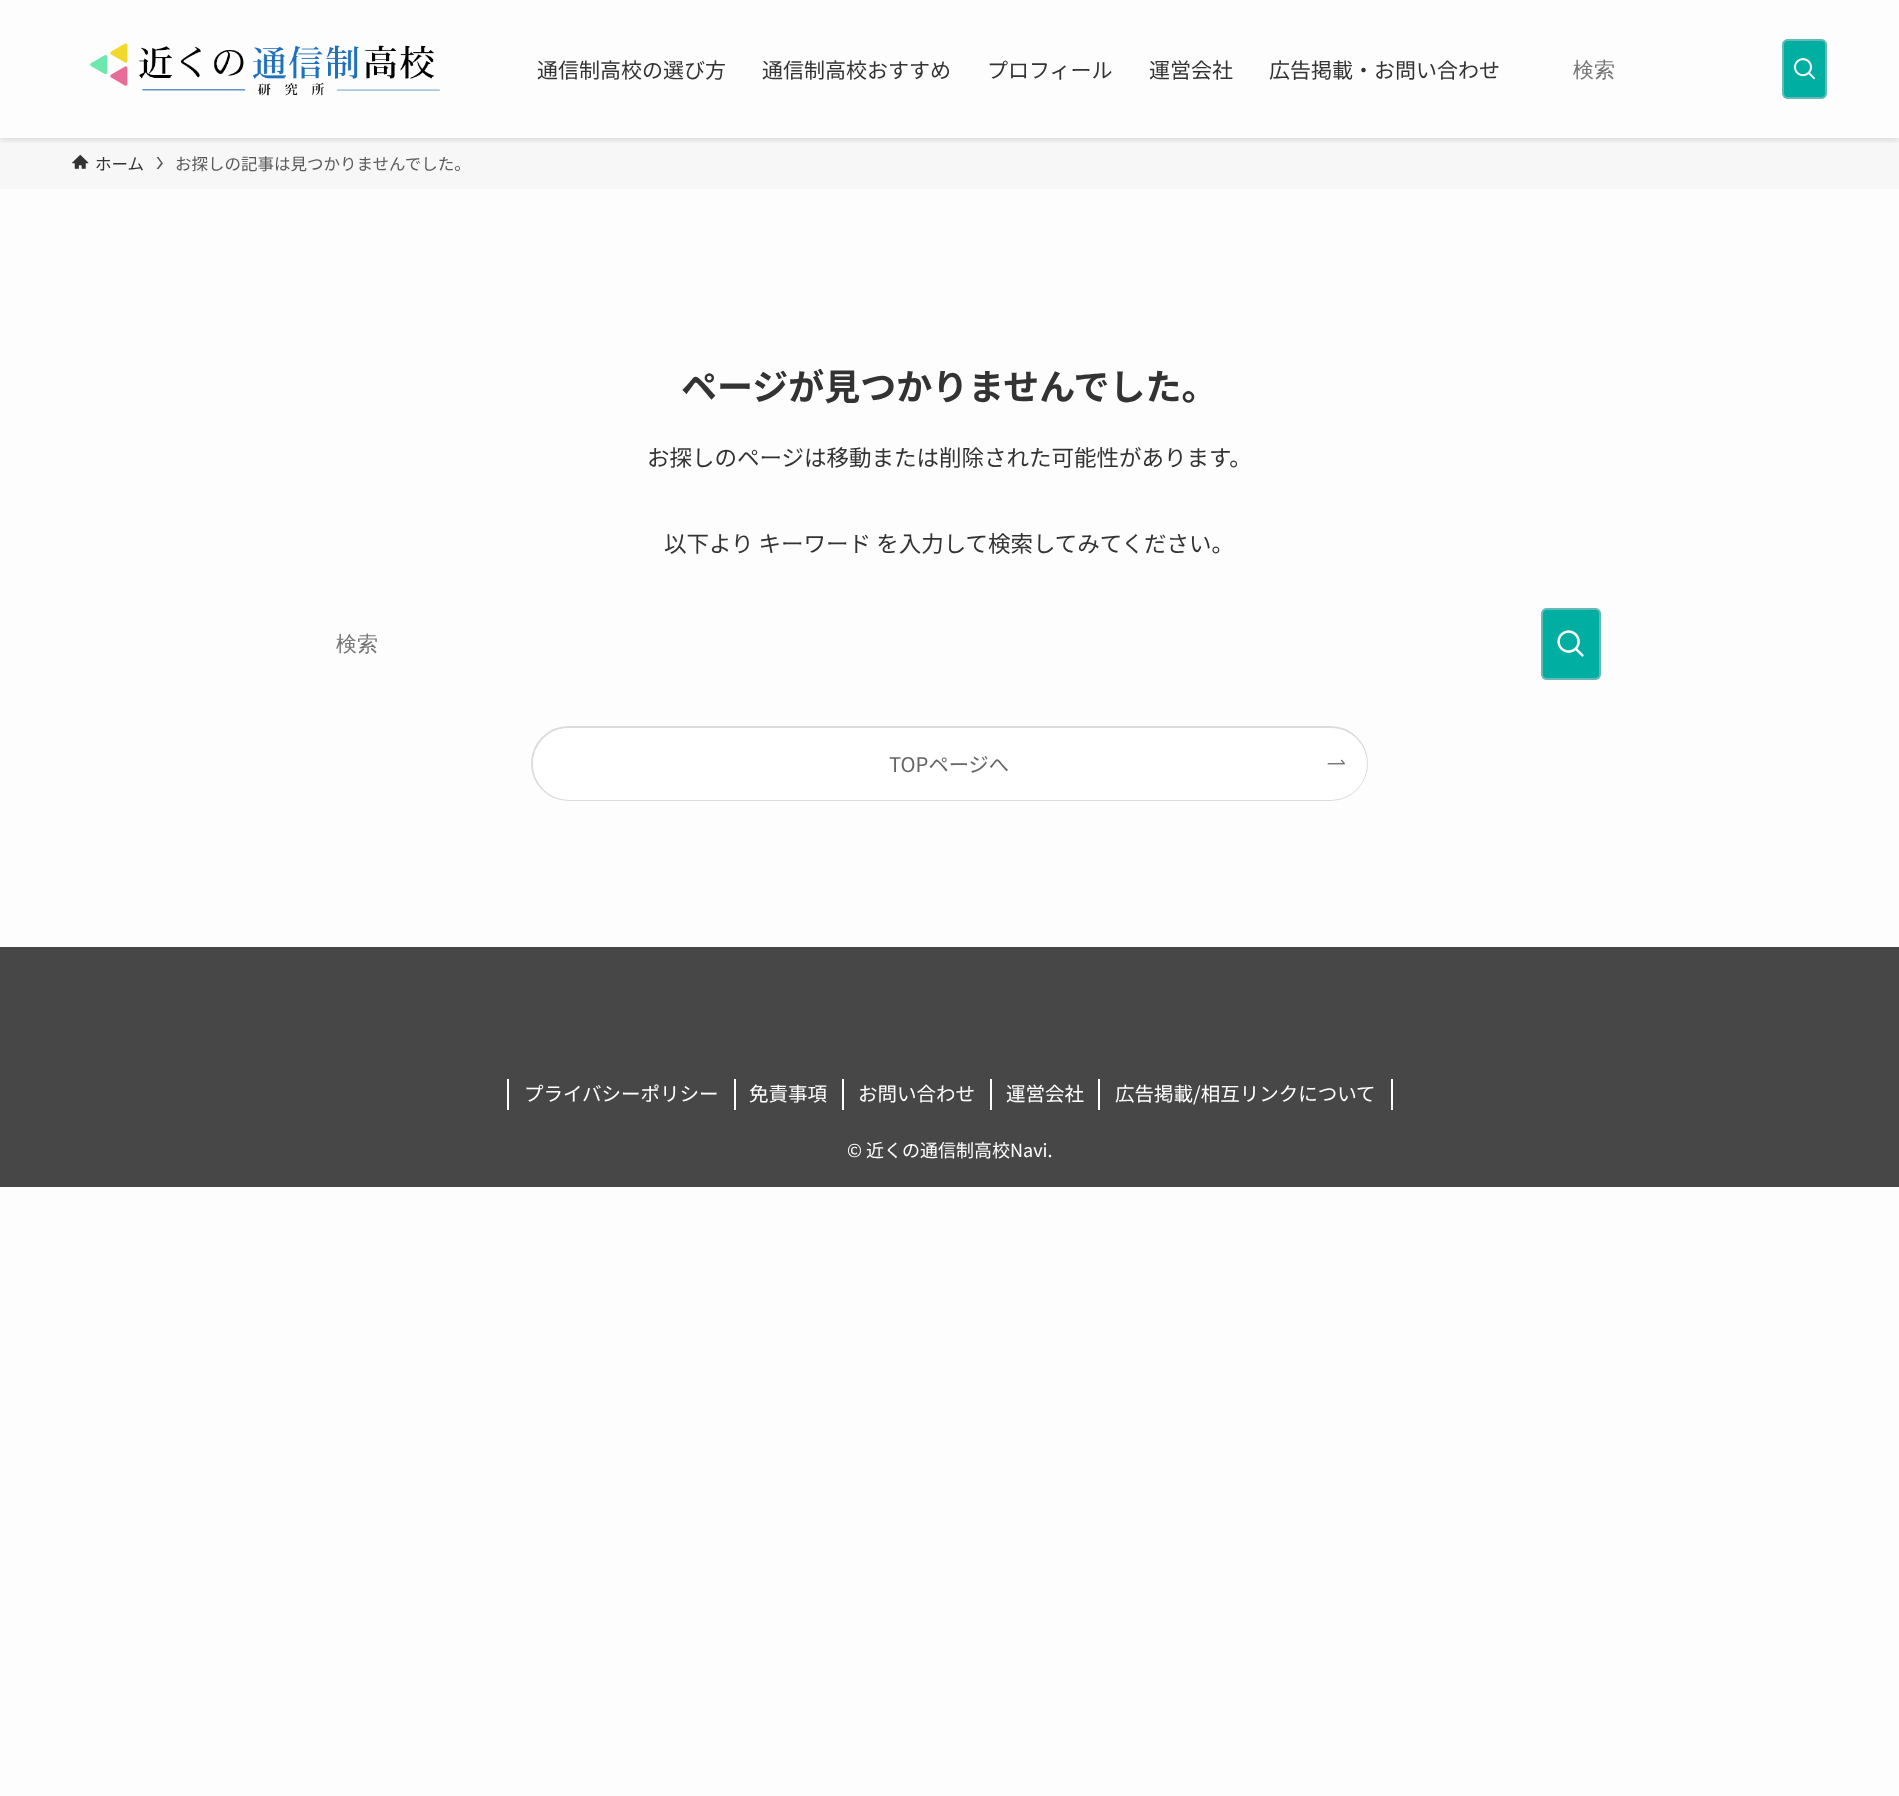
<svg xmlns="http://www.w3.org/2000/svg" width="1899" height="1796" viewBox="0 0 1899 1796">
  <defs>
    <clipPath id="clip1"><path d="M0 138h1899v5H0z"/></clipPath>
  </defs>
  <rect width="100%" height="100%" fill="#fdfdfd"/>
  <path d="M0 138h1899v51H0z" fill="#f7f7f7"/>
  <g clip-path="url(#clip1)">
    <path d="M0 2h1899v138H0z" fill="#0000001f" filter="blur(3px)"/>
  </g>
  <image x="90" y="43" width="350" height="53" href="img/1.png"/>
  <rect x="1782" y="39" width="45" height="60" rx="6" fill="#00aea2"/>
  <rect x="1783" y="40" width="43" height="58" rx="5" fill="none" stroke="#c7c7c780" stroke-width="2"/>
  <image x="1794" y="58" width="21" height="22" href="img/2.png"/>
  <image x="72" y="154" width="17" height="15" href="img/3.png"/>
  <path d="M158.5 157H156.5L161 163L156.5 169H158.5L163 163.5Z" fill="#5a5a5a"/>
  <rect x="1541" y="608" width="60" height="72" rx="6" fill="#00aea2"/>
  <rect x="1542" y="609" width="58" height="70" rx="5" fill="none" stroke="#c7c7c780" stroke-width="2"/>
  <image x="1557" y="630" width="27" height="27" href="img/4.png"/>
  <rect x="532" y="727" width="835" height="73" rx="36.5" fill="none" stroke="#dcdcdc" stroke-width="2"/>
  <rect x="533" y="728" width="834" height="72" rx="36" fill="#fff"/>
  <image x="1327" y="759" width="18" height="6" href="img/5.png"/>
  <path d="M0 947h1899v240H0z" fill="#474747"/>
  <path d="M734 1079h2v31H734z" fill="#fff"/>
  <path d="M507 1079h2v31H507z" fill="#fff"/>
  <path d="M842 1079h2v31H842z" fill="#fff"/>
  <path d="M990 1079h2v31H990z" fill="#fff"/>
  <path d="M1098 1079h2v31H1098z" fill="#fff"/>
  <path d="M1391 1079h2v31H1391z" fill="#fff"/>
  <g font-family="Noto Sans JP" font-size="21" fill="#333">
    <text x="537" y="78">通信制高校の選び方</text>
    <text x="762" y="78">通信制高校おすすめ</text>
    <text x="987" y="78">プロフィール</text>
    <text x="1149" y="78">運営会社</text>
    <text x="1269" y="78">広告掲載・お問い合わせ</text>
  </g>
  <text x="1573" y="77" font-family="WenQuanYi Zen Hei" font-size="21" font-weight="500" fill="#757575">検索</text>
  <text x="95" y="170" font-family="Noto Sans JP" font-size="16.5" fill="#333">ホーム</text>
  <text x="175" y="170" font-family="Noto Sans JP" font-size="16.5" fill="#5a5a5a">お探しの記事は見つかりませんでした。</text>
  <text x="681" y="400" font-family="Noto Sans JP" font-size="36" font-weight="bold" fill="#333">ページが見つかりませんでした。</text>
  <g font-family="Noto Sans JP" font-size="22.5" fill="#333">
    <text x="647" y="466">お探しのページは移動または削除された可能性があります。</text>
    <text x="664" y="552">以下より キーワード を入力して検索してみてください。</text>
  </g>
  <text x="336" y="651" font-family="WenQuanYi Zen Hei" font-size="21" font-weight="500" fill="#757575">検索</text>
  <text x="889" y="772" font-family="Noto Sans JP" font-size="20.25" fill="#666">TOPページへ</text>
  <g font-family="Noto Sans JP" font-size="19.5" fill="#fff">
    <text x="524" y="1101">プライバシーポリシー</text>
    <text x="749" y="1101">免責事項</text>
    <text x="858" y="1101">お問い合わせ</text>
    <text x="1006" y="1101">運営会社</text>
    <text x="1115" y="1101">広告掲載/相互リンクについて</text>
  </g>
  <text x="847" y="1157" font-family="Noto Sans JP" font-size="18" fill="#fff">© 近くの通信制高校Navi.</text>
</svg>
